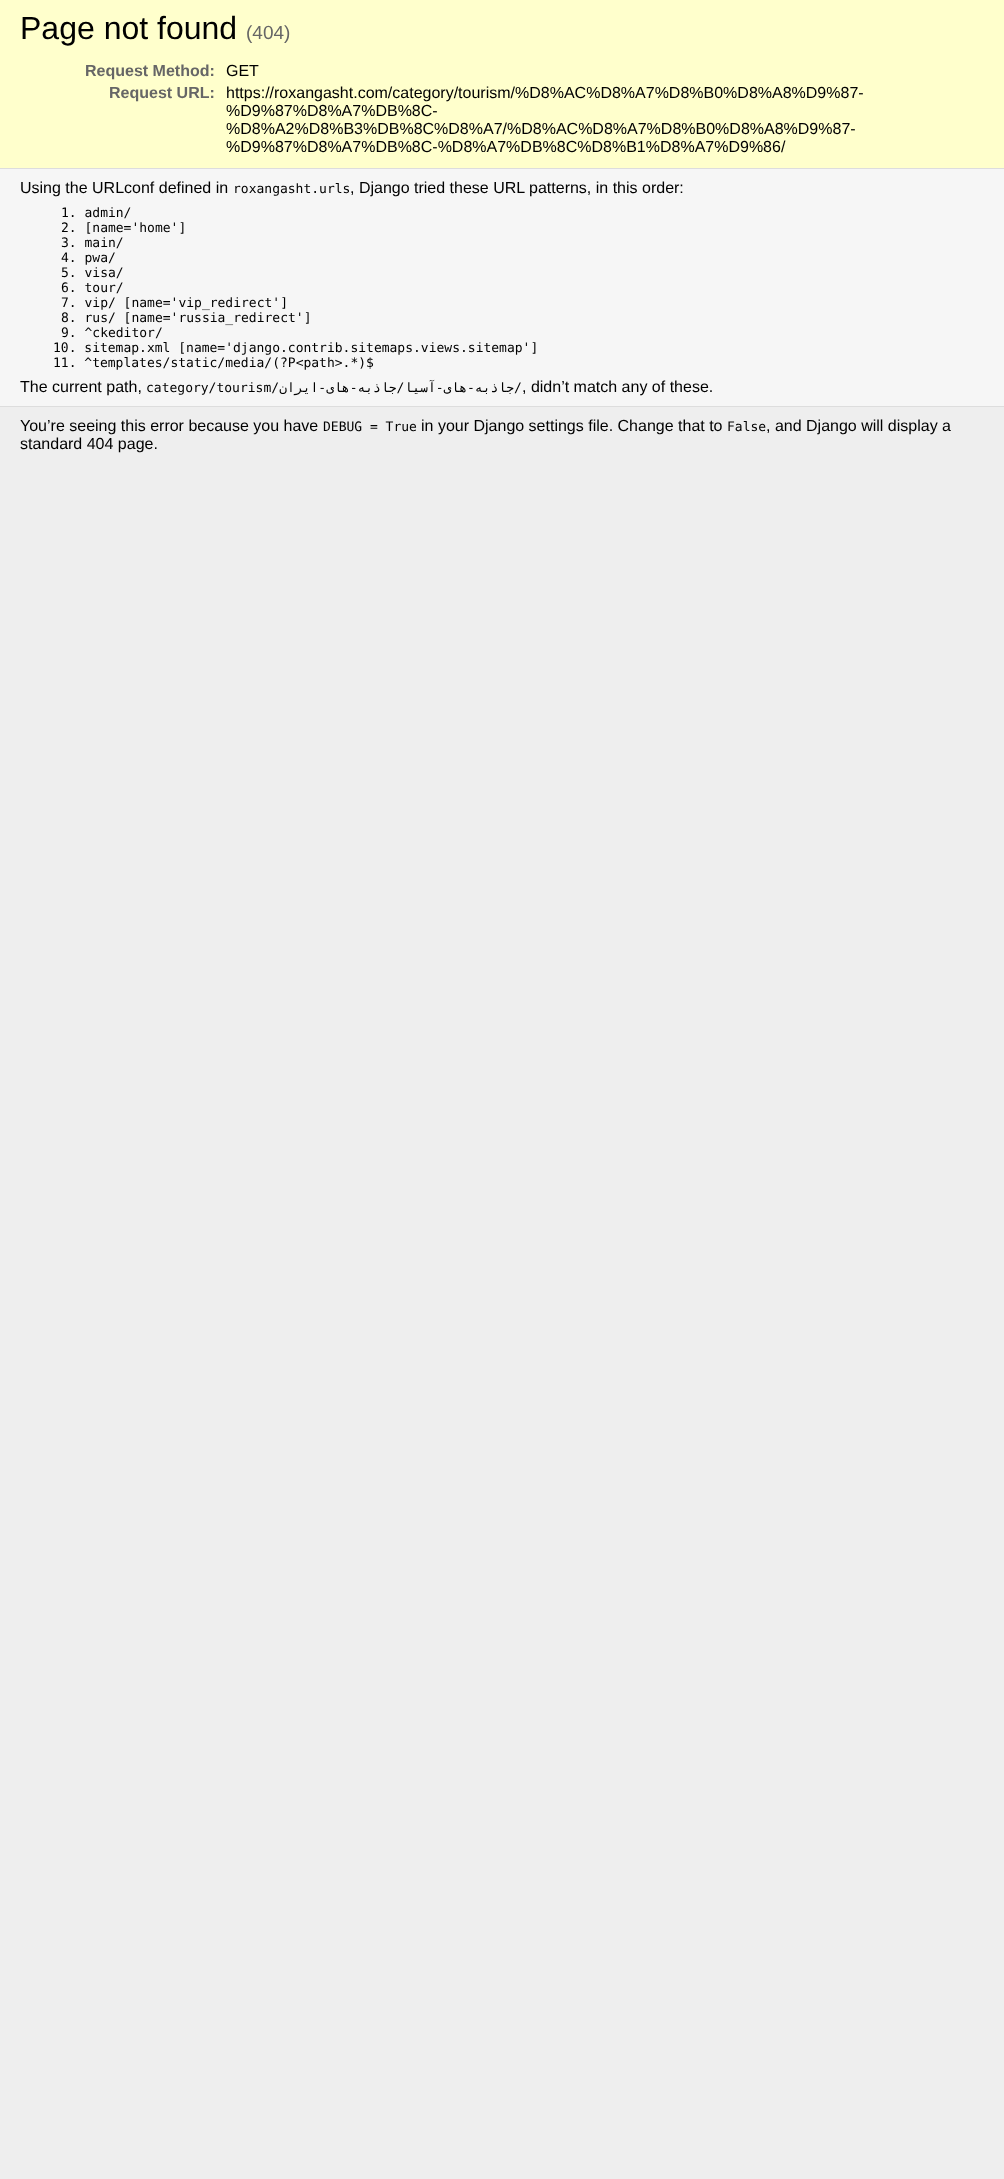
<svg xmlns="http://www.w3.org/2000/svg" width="1004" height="2179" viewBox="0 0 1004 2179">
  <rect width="100%" height="100%" fill="#eee"/>
  <path d="M0 0h1004v168H0z" fill="#ffc"/>
  <path d="M0 168h1004v1H0z" fill="#ddd"/>
  <path d="M0 169h1004v237H0z" fill="#f6f6f6"/>
  <path d="M0 406h1004v1H0z" fill="#ddd"/>
  <text x="20" y="39" font-family="Liberation Sans" font-size="32" fill="#000">Page not found</text>
  <text x="246" y="39" font-family="Liberation Sans" font-size="19" fill="#666">(404)</text>
  <text x="85" y="76" font-family="Liberation Sans" font-size="16" font-weight="bold" fill="#666">Request Method:</text>
  <text x="226" y="76" font-family="Liberation Sans" font-size="16" fill="#000">GET</text>
  <text x="109" y="98" font-family="Liberation Sans" font-size="16" font-weight="bold" fill="#666">Request URL:</text>
  <g font-family="Liberation Sans" font-size="16" fill="#000">
    <text x="226" y="98">https://roxangasht.com/category/tourism/%D8%AC%D8%A7%D8%B0%D8%A8%D9%87-</text>
    <text x="226" y="116">%D9%87%D8%A7%DB%8C-</text>
    <text x="226" y="134">%D8%A2%D8%B3%DB%8C%D8%A7/%D8%AC%D8%A7%D8%B0%D8%A8%D9%87-</text>
    <text x="226" y="152">%D9%87%D8%A7%DB%8C-%D8%A7%DB%8C%D8%B1%D8%A7%D9%86/</text>
    <text x="20" y="193">Using the URLconf defined in</text>
  </g>
  <text x="233" y="193" font-family="DejaVu Sans Mono" font-size="13" fill="#000">roxangasht.urls</text>
  <text x="350" y="193" font-family="Liberation Sans" font-size="16" fill="#000">, Django tried these URL patterns, in this order:</text>
  <g font-family="DejaVu Sans Mono" font-size="13" fill="#000">
    <text x="61" y="217">1. admin/</text>
    <text x="61" y="232">2. [name='home']</text>
    <text x="61" y="247">3. main/</text>
    <text x="61" y="262">4. pwa/</text>
    <text x="61" y="277">5. visa/</text>
    <text x="61" y="292">6. tour/</text>
    <text x="61" y="307">7. vip/ [name='vip_redirect']</text>
    <text x="61" y="322">8. rus/ [name='russia_redirect']</text>
    <text x="61" y="337">9. ^ckeditor/</text>
    <text x="53" y="352">10. sitemap.xml [name='django.contrib.sitemaps.views.sitemap']</text>
    <text x="53" y="367">11. ^templates/static/media/(?P&lt;path&gt;.*)$</text>
  </g>
  <text x="20" y="392" font-family="Liberation Sans" font-size="16" fill="#000">The current path,</text>
  <text x="146" y="392" font-family="DejaVu Sans Mono" font-size="13" fill="#000">category/tourism/</text>
  <text x="514" y="392" font-family="DejaVu Sans Mono" font-size="13" direction="rtl" fill="#000">جاذبه-های-آسیا/جاذبه-های-ایران</text>
  <text x="514" y="392" font-family="DejaVu Sans Mono" font-size="13" fill="#000">/</text>
  <g font-family="Liberation Sans" font-size="16" fill="#000">
    <text x="522" y="392">, didn’t match any of these.</text>
    <text x="20" y="431">You’re seeing this error because you have</text>
  </g>
  <text x="323" y="431" font-family="DejaVu Sans Mono" font-size="13" fill="#000">DEBUG = True</text>
  <text x="421" y="431" font-family="Liberation Sans" font-size="16" fill="#000">in your Django settings file. Change that to</text>
  <text x="727" y="431" font-family="DejaVu Sans Mono" font-size="13" fill="#000">False</text>
  <g font-family="Liberation Sans" font-size="16" fill="#000">
    <text x="766" y="431">, and Django will display a</text>
    <text x="20" y="449">standard 404 page.</text>
  </g>
</svg>
